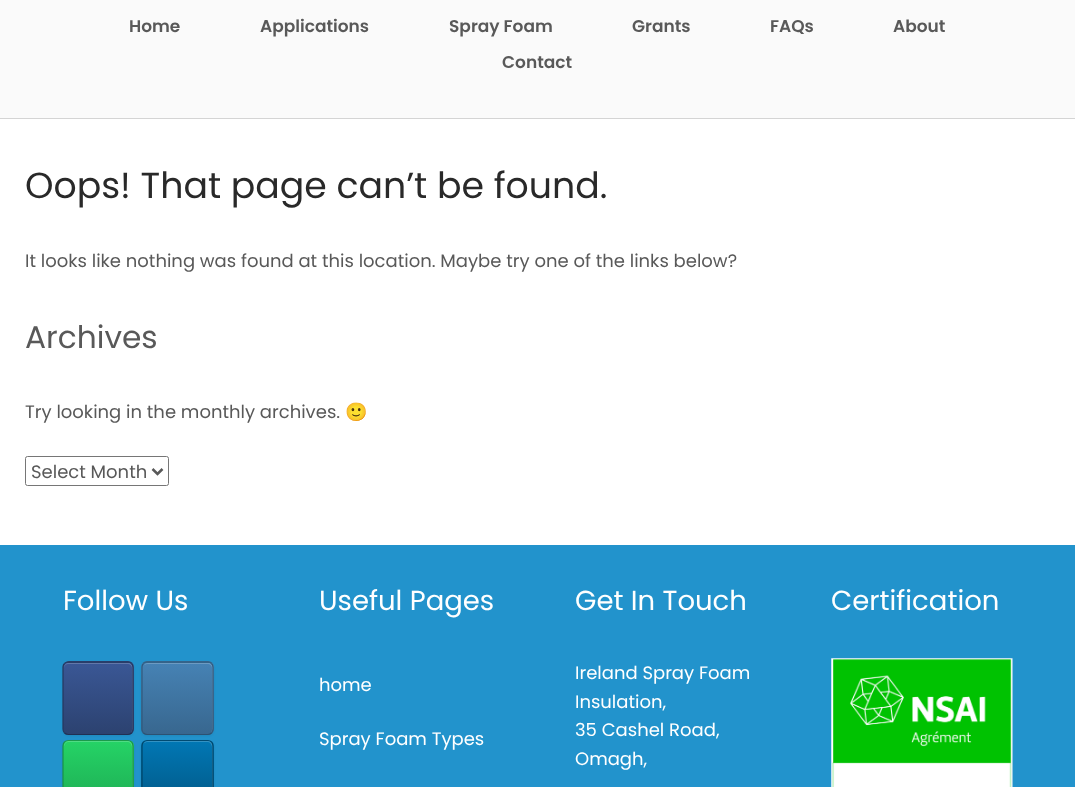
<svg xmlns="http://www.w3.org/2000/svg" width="1075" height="787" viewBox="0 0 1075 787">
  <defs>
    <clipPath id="clip1"><rect x="63" y="661" width="71" height="74" rx="6"/></clipPath>
    <linearGradient id="g1" gradientUnits="userSpaceOnUse" x1="64" y1="663" x2="64" y2="591"><stop offset="0" stop-color="#2c4270"/><stop offset="1" stop-color="#3a5795"/></linearGradient>
    <linearGradient id="g2" gradientUnits="userSpaceOnUse" x1="64" y1="734" x2="64" y2="663"><stop offset="0" stop-color="#2c4270"/><stop offset="1" stop-color="#3a5795"/></linearGradient>
    <clipPath id="clip2"><rect x="141" y="661" width="73" height="74" rx="6"/></clipPath>
    <linearGradient id="g3" gradientUnits="userSpaceOnUse" x1="143" y1="663" x2="143" y2="591"><stop offset="0" stop-color="#38678f"/><stop offset="1" stop-color="#4682b4"/></linearGradient>
    <linearGradient id="g4" gradientUnits="userSpaceOnUse" x1="143" y1="734" x2="143" y2="663"><stop offset="0" stop-color="#38678f"/><stop offset="1" stop-color="#4682b4"/></linearGradient>
    <clipPath id="clip3"><rect x="63" y="740" width="71" height="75" rx="6"/></clipPath>
    <linearGradient id="g5" gradientUnits="userSpaceOnUse" x1="64" y1="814" x2="64" y2="741"><stop offset="0" stop-color="#1da851"/><stop offset="1" stop-color="#25d366"/></linearGradient>
    <clipPath id="clip4"><rect x="141" y="740" width="73" height="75" rx="6"/></clipPath>
    <linearGradient id="g6" gradientUnits="userSpaceOnUse" x1="143" y1="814" x2="143" y2="741"><stop offset="0" stop-color="#015581"/><stop offset="1" stop-color="#0177b4"/></linearGradient>
  </defs>
  <rect width="100%" height="100%" fill="#fff"/>
  <path d="M0 0h1075v118H0z" fill="#fafafa"/>
  <path d="M0 118h1075v1H0z" fill="#d4d4d4"/>
  <rect x="25.5" y="456.5" width="143" height="29" rx="2" fill="none" stroke="#767676"/>
  <path d="M152.5 469L157.5 474L162.5 469" fill="none" stroke="#595959" stroke-width="2.5"/>
  <path d="M0 545h1075v242H0z" fill="#2293cc"/>
  <rect x="63" y="663" width="71" height="73" rx="6" fill="#00000012" filter="blur(1px)"/>
  <g clip-path="url(#clip1)">
    <path d="M63 661h71v2H63z" fill="url(#g1)"/>
    <path d="M63 663h71v71H63z" fill="url(#g2)"/>
  </g>
  <path d="M68 664H128C130 664 132 666 132 668V730L131 733C132 732 133 730 133 729V668C133 665 131 663 128 663H69C66 663 64 665 64 668C64 666 66 664 68 664Z" fill="#ffffff33"/>
  <path d="M64.5 663.5C65.5 662.5 67 662 68.5 662H128C129 662 130.5 662.5 131.5 663.5" fill="none" stroke="#273b65" stroke-width="1.2"/>
  <path d="M131.5 663.5C132.5 664.5 133 666 133 667V729C133 730.5 132.5 732 131.5 733" fill="none" stroke="#25375e" stroke-width="1.2"/>
  <path d="M131.5 733C130.5 734 129 734.5 128 734.5H68.5C67 734.5 65.5 734 64.5 733" fill="none" stroke="#203053" stroke-width="1.2"/>
  <path d="M64.5 733C63.5 732 63 730.5 63 729V667C63 666 63.5 664.5 64.5 663.5" fill="none" stroke="#25375e" stroke-width="1.2"/>
  <rect x="141" y="663" width="73" height="73" rx="6" fill="#00000012" filter="blur(1px)"/>
  <g clip-path="url(#clip2)">
    <path d="M141 661h73v2H141z" fill="url(#g3)"/>
    <path d="M141 663h73v71H141z" fill="url(#g4)"/>
  </g>
  <path d="M147 664H208C210 664 212 666 212 668V730L211 733C212 732 213 730 213 729V668C213 665 211 663 208 663H148C146 663 145 664 144 665Z" fill="#ffffff33"/>
  <path d="M143.5 663.5C144.5 662.5 146 662 147 662H208C209 662 210.5 662.5 211.5 663.5" fill="none" stroke="#336084" stroke-width="1.2"/>
  <path d="M211.5 663.5C212.5 664.5 213 666 213 667V729C213 730.5 212.5 732 211.5 733" fill="none" stroke="#315a7d" stroke-width="1.2"/>
  <path d="M211.5 733C210.5 734 209 734.5 208 734.5H147C146 734.5 144.5 734 143.5 733" fill="none" stroke="#2c5272" stroke-width="1.2"/>
  <path d="M143.5 733C142.5 732 142 730.5 142 729V667C142 666 142.5 664.5 143.5 663.5" fill="none" stroke="#315a7d" stroke-width="1.2"/>
  <rect x="63" y="741" width="71" height="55" rx="6" fill="#00000012" filter="blur(1px)"/>
  <g clip-path="url(#clip3)">
    <path d="M63 741h71v46H63z" fill="url(#g5)"/>
  </g>
  <path d="M68 742H128C130 742 132 745 132 747V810L131 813C132 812 133 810 133 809V746C133 743 131 741 128 741H69C66 741 64 743 64 746V747C64 745 66 742 68 742Z" fill="#ffffff33"/>
  <path d="M64.5 742C65.5 741 67 740.5 68.5 740.5H128C129 740.5 130.5 741 131.5 742" fill="none" stroke="#1b9b4b" stroke-width="1.2"/>
  <path d="M131.5 742C132.5 743 133 744.5 133 746V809C133 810.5 132.5 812 131.5 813" fill="none" stroke="#1a9247" stroke-width="1.2"/>
  <path d="M64.5 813C63.5 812 63 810.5 63 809V746C63 744.5 63.5 743 64.5 742" fill="none" stroke="#1a9247" stroke-width="1.2"/>
  <rect x="141" y="741" width="73" height="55" rx="6" fill="#00000012" filter="blur(1px)"/>
  <g clip-path="url(#clip4)">
    <path d="M141 741h73v46H141z" fill="url(#g6)"/>
  </g>
  <path d="M147 742H208C210 742 212 745 212 747V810L211 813C212 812 213 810 213 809V746C213 743 211 741 208 741H148C146 741 144 742 143 744C144 743 146 742 147 742Z" fill="#ffffff33"/>
  <path d="M143.5 742C144.5 741 146 740.5 147 740.5H208C209 740.5 210.5 741 211.5 742" fill="none" stroke="#014b72" stroke-width="1.2"/>
  <path d="M211.5 742C212.5 743 213 744.5 213 746V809C213 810.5 212.5 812 211.5 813" fill="none" stroke="#014568" stroke-width="1.2"/>
  <path d="M143.5 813C142.5 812 142 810.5 142 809V746C142 744.5 142.5 743 143.5 742" fill="none" stroke="#014568" stroke-width="1.2"/>
  <image x="831" y="658" width="182" height="129" href="img/1.png"/>
  <g font-family="Poppins" font-size="17" font-weight="600" fill="#595959">
    <text x="129" y="32">Home</text>
    <text x="260" y="32">Applications</text>
    <text x="449" y="32">Spray Foam</text>
    <text x="632" y="32">Grants</text>
    <text x="770" y="32">FAQs</text>
    <text x="893" y="32">About</text>
    <text x="502" y="68">Contact</text>
  </g>
  <text x="25" y="198" font-family="Poppins" font-size="36.25" fill="#292929">Oops! That page can’t be found.</text>
  <text x="25" y="267" font-family="Poppins" font-size="18" fill="#595959">It looks like nothing was found at this location. Maybe try one of the links below?</text>
  <text x="25" y="348" font-family="Poppins" font-size="31.25" fill="#595959">Archives</text>
  <text x="25" y="418" font-family="Poppins" font-size="18" fill="#595959">Try looking in the monthly archives.</text>
  <text x="345" y="418" font-family="Noto Color Emoji" font-size="18" fill="#595959">🙂</text>
  <text x="31" y="478" font-family="Poppins" font-size="18" fill="#595959">Select Month</text>
  <g font-family="Poppins" font-size="27.5" fill="#fff">
    <text x="63" y="610">Follow Us</text>
    <text x="319" y="610">Useful Pages</text>
  </g>
  <g font-family="Poppins" font-size="18" fill="#fff">
    <text x="319" y="691">home</text>
    <text x="319" y="745">Spray Foam Types</text>
  </g>
  <text x="575" y="610" font-family="Poppins" font-size="27.5" fill="#fff">Get In Touch</text>
  <g font-family="Poppins" font-size="18" fill="#fff">
    <text x="575" y="679">Ireland Spray Foam</text>
    <text x="575" y="708">Insulation,</text>
    <text x="575" y="736">35 Cashel Road,</text>
    <text x="575" y="765">Omagh,</text>
  </g>
  <text x="831" y="610" font-family="Poppins" font-size="27.5" fill="#fff">Certification</text>
</svg>
